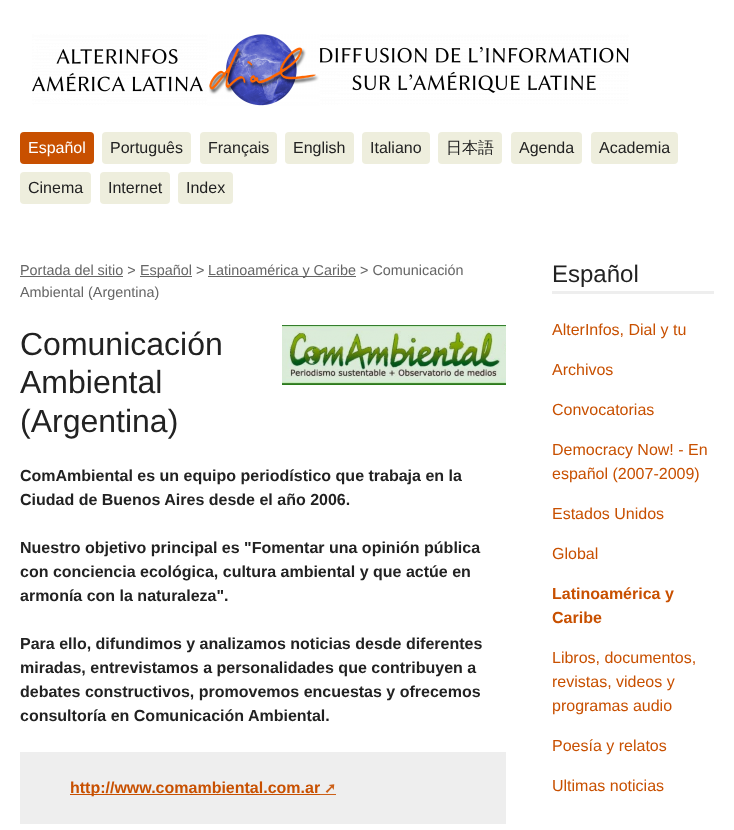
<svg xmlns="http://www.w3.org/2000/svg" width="734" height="830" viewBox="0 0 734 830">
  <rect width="100%" height="100%" fill="#fff"/>
  <image x="32" y="34" width="597" height="72" href="img/1.png"/>
  <rect x="20" y="132" width="74" height="32" rx="4" fill="#c85000"/>
  <rect x="102" y="132" width="89" height="32" rx="4" fill="#eed"/>
  <rect x="200" y="132" width="77" height="32" rx="4" fill="#eed"/>
  <rect x="285" y="132" width="69" height="32" rx="4" fill="#eed"/>
  <rect x="362" y="132" width="68" height="32" rx="4" fill="#eed"/>
  <rect x="438" y="132" width="64" height="32" rx="4" fill="#eed"/>
  <rect x="511" y="132" width="71" height="32" rx="4" fill="#eed"/>
  <rect x="591" y="132" width="87" height="32" rx="4" fill="#eed"/>
  <rect x="20" y="172" width="71" height="32" rx="4" fill="#eed"/>
  <rect x="100" y="172" width="70" height="32" rx="4" fill="#eed"/>
  <rect x="178" y="172" width="55" height="32" rx="4" fill="#eed"/>
  <path d="M20 276h103v1H20z" fill="#666"/>
  <path d="M140 276h52v1H140z" fill="#666"/>
  <path d="M208 276h148v1H208z" fill="#666"/>
  <image x="282" y="325" width="224" height="60" href="img/2.png"/>
  <path d="M20 752h486v72H20z" fill="#eee"/>
  <path d="M70 794h250v1H70z" fill="#c85000"/>
  <path d="M320 794h16v1H320z" fill="#cc6018"/>
  <path d="M552 291h162v3H552z" fill="#eee"/>
  <text x="28" y="153" font-family="Liberation Sans" font-size="16" fill="#fff">Español</text>
  <g font-family="Liberation Sans" font-size="16" fill="#222">
    <text x="110" y="153">Português</text>
    <text x="208" y="153">Français</text>
    <text x="293" y="153">English</text>
    <text x="370" y="153">Italiano</text>
  </g>
  <text x="446" y="153" font-family="WenQuanYi Zen Hei" font-size="16" font-weight="500" fill="#222">日本語</text>
  <g font-family="Liberation Sans" font-size="16" fill="#222">
    <text x="519" y="153">Agenda</text>
    <text x="599" y="153">Academia</text>
    <text x="28" y="193">Cinema</text>
    <text x="108" y="193">Internet</text>
    <text x="186" y="193">Index</text>
  </g>
  <g font-family="Liberation Sans" font-size="14.4" fill="#666">
    <text x="20" y="275">Portada del sitio &gt;</text>
    <text x="140" y="275">Español &gt;</text>
    <text x="208" y="275">Latinoamérica y Caribe &gt; Comunicación</text>
    <text x="20" y="297">Ambiental (Argentina)</text>
  </g>
  <g font-family="Liberation Sans" font-size="32" fill="#222">
    <text x="20" y="355">Comunicación</text>
    <text x="20" y="393">Ambiental</text>
    <text x="20" y="432">(Argentina)</text>
  </g>
  <g font-family="Liberation Sans" font-size="16" font-weight="bold" fill="#222">
    <text x="20" y="481">ComAmbiental es un equipo periodístico que trabaja en la</text>
    <text x="20" y="505">Ciudad de Buenos Aires desde el año 2006.</text>
    <text x="20" y="553">Nuestro objetivo principal es "Fomentar una opinión pública</text>
    <text x="20" y="577">con conciencia ecológica, cultura ambiental y que actúe en</text>
    <text x="20" y="601">armonía con la naturaleza".</text>
    <text x="20" y="649">Para ello, difundimos y analizamos noticias desde diferentes</text>
    <text x="20" y="673">miradas, entrevistamos a personalidades que contribuyen a</text>
    <text x="20" y="697">debates constructivos, promovemos encuestas y ofrecemos</text>
    <text x="20" y="721">consultoría en Comunicación Ambiental.</text>
  </g>
  <text x="70" y="793" font-family="Liberation Sans" font-size="16" font-weight="bold" fill="#c85000">http://www.comambiental.com.ar</text>
  <text x="324" y="793" font-family="DejaVu Sans" font-size="14.4" font-weight="bold" fill="#cc6018">➚</text>
  <text x="552" y="282" font-family="Liberation Sans" font-size="24" fill="#222">Español</text>
  <g font-family="Liberation Sans" font-size="16" fill="#c85000">
    <text x="552" y="335">AlterInfos, Dial y tu</text>
    <text x="552" y="375">Archivos</text>
    <text x="552" y="415">Convocatorias</text>
    <text x="552" y="455">Democracy Now! - En</text>
    <text x="552" y="479">español (2007-2009)</text>
    <text x="552" y="519">Estados Unidos</text>
    <text x="552" y="559">Global</text>
  </g>
  <g font-family="Liberation Sans" font-size="16" font-weight="bold" fill="#c85000">
    <text x="552" y="599">Latinoamérica y</text>
    <text x="552" y="623">Caribe</text>
  </g>
  <g font-family="Liberation Sans" font-size="16" fill="#c85000">
    <text x="552" y="663">Libros, documentos,</text>
    <text x="552" y="687">revistas, videos y</text>
    <text x="552" y="711">programas audio</text>
    <text x="552" y="751">Poesía y relatos</text>
    <text x="552" y="791">Ultimas noticias</text>
  </g>
</svg>
